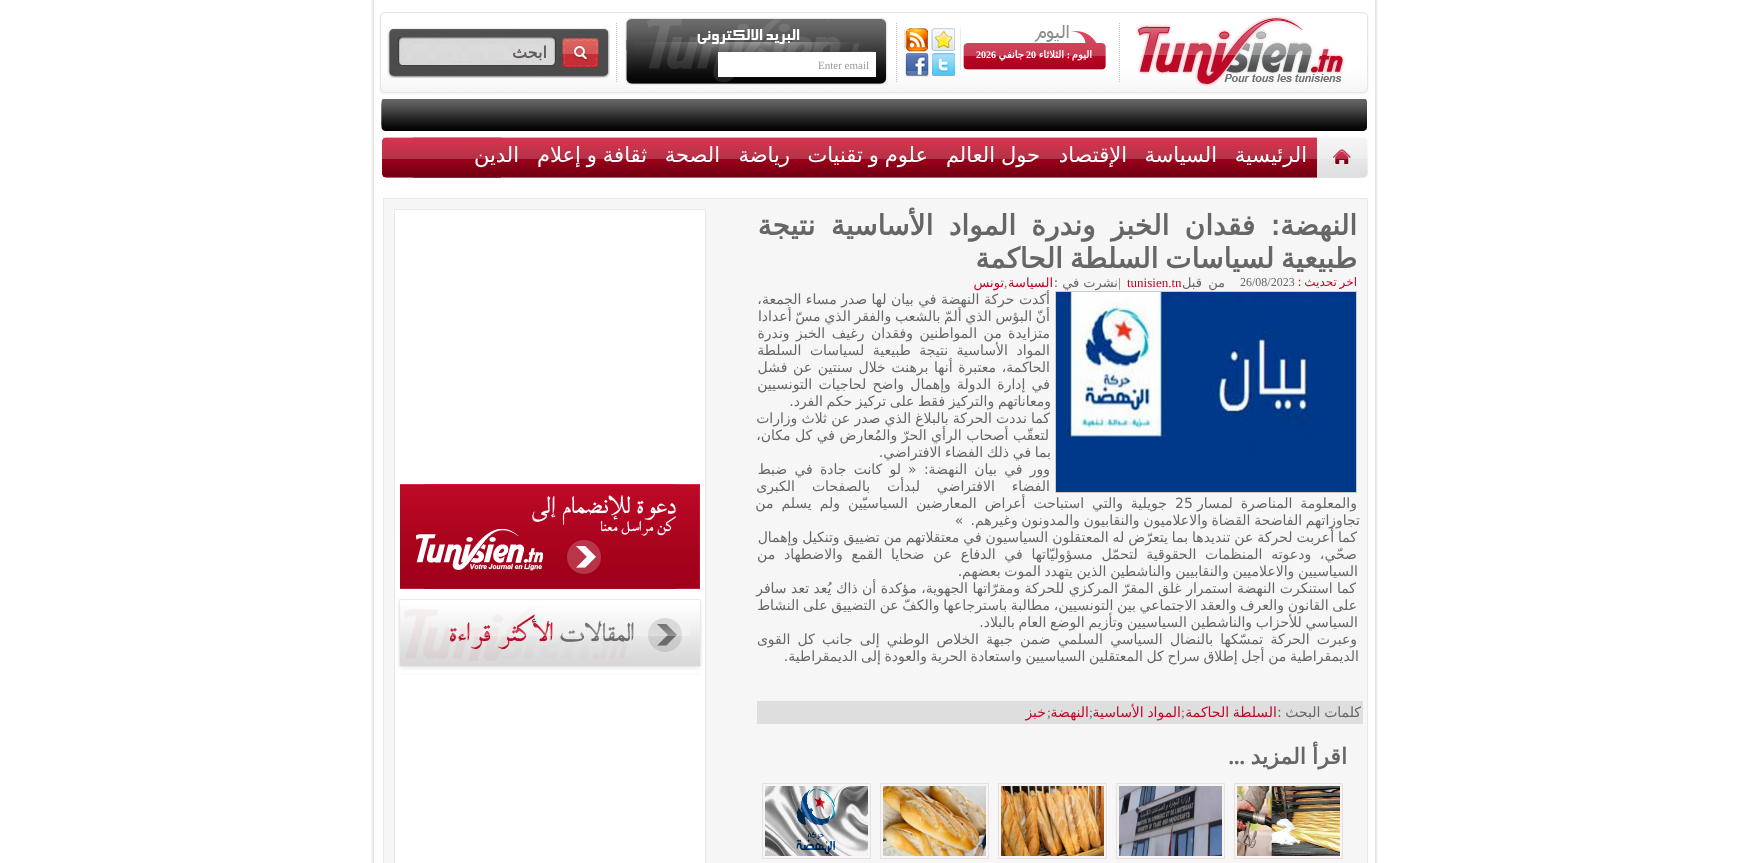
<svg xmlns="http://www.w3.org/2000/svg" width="1748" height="863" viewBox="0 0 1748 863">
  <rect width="100%" height="100%" fill="#fff"/>
  <image x="371" y="0" width="1007" height="863" href="img/1.png"/>
  <image x="379" y="12" width="990" height="83" href="img/2.png"/>
  <image x="1135" y="16" width="233" height="71" href="img/3.png"/>
  <path d="M1119.5 23V83" fill="none" stroke="#c2c3c3" stroke-dasharray="1 1"/>
  <image x="960" y="25" width="146" height="45" href="img/4.png"/>
  <image x="931" y="28" width="24" height="23" href="img/5.png"/>
  <image x="904" y="28" width="24" height="24" href="img/6.png"/>
  <image x="932" y="53" width="23" height="23" href="img/7.png"/>
  <image x="905" y="53" width="24" height="24" href="img/8.png"/>
  <path d="M896.5 23V83" fill="none" stroke="#c2c3c3" stroke-dasharray="1 1"/>
  <path d="M616.5 23V83" fill="none" stroke="#c2c3c3" stroke-dasharray="1 1"/>
  <image x="387" y="28" width="223" height="50" href="img/9.png"/>
  <image x="562" y="38" width="37" height="30" href="img/10.png"/>
  <image x="398" y="37" width="158" height="29" href="img/11.png"/>
  <image x="625" y="18" width="263" height="67" href="img/12.png"/>
  <path d="M718 52h158v25H718z" fill="#fff"/>
  <image x="381" y="99" width="986" height="32" href="img/13.png"/>
  <image x="382" y="137" width="986" height="41" href="img/14.png"/>
  <image x="1317" y="149" width="51" height="29" href="img/15.png"/>
  <path d="M383.5 198.5h984v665H383.5z" fill="#f6f6f6" stroke="#e8e8e8"/>
  <path d="M1055.5 291.5h301v201H1055.5z" fill="none" stroke="#ccc"/>
  <image x="1056" y="292" width="300" height="200" href="img/16.png"/>
  <path d="M757 701h606v23H757z" fill="#dedede"/>
  <path d="M1234.5 783.5h108v75H1234.5z" fill="none" stroke="#ebdde2"/>
  <image x="1237" y="786" width="103" height="70" href="img/17.png"/>
  <path d="M1116.5 783.5h108v75H1116.5z" fill="none" stroke="#ebdde2"/>
  <image x="1119" y="786" width="103" height="70" href="img/18.png"/>
  <path d="M998.5 783.5h108v75H998.5z" fill="none" stroke="#ebdde2"/>
  <image x="1001" y="786" width="103" height="70" href="img/19.png"/>
  <path d="M880.5 783.5h108v75H880.5z" fill="none" stroke="#ebdde2"/>
  <image x="883" y="786" width="103" height="70" href="img/20.png"/>
  <path d="M762.5 783.5h108v75H762.5z" fill="none" stroke="#ebdde2"/>
  <image x="765" y="786" width="103" height="70" href="img/21.png"/>
  <path d="M394.5 209.5h311v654H394.5z" fill="#fff" stroke="#e8e8e8"/>
  <image x="400" y="484" width="300" height="105" href="img/22.png"/>
  <image x="397" y="599" width="306" height="76" href="img/23.png"/>
  <text x="1092" y="58" font-family="DejaVu Sans" font-size="10" font-weight="bold" direction="rtl" fill="#fff">اليوم</text>
  <text x="1070" y="58" font-family="Liberation Serif" font-size="10" font-weight="bold" direction="rtl" fill="#fff">:</text>
  <text x="1064" y="58" font-family="DejaVu Sans" font-size="10" font-weight="bold" direction="rtl" fill="#fff">الثلاثاء</text>
  <text x="1026" y="58" font-family="Liberation Serif" font-size="10" font-weight="bold" fill="#fff">20</text>
  <text x="1024" y="58" font-family="DejaVu Sans" font-size="10" font-weight="bold" direction="rtl" fill="#fff">جانفي</text>
  <text x="976" y="58" font-family="Liberation Serif" font-size="10" font-weight="bold" fill="#fff">2026</text>
  <text x="547" y="58" font-family="DejaVu Sans" font-size="16" font-weight="bold" direction="rtl" fill="#635c5c">ابحث</text>
  <text x="818" y="69" font-family="Liberation Serif" font-size="11" fill="#9a9a9a">Enter email</text>
  <g font-family="DejaVu Sans" font-size="21" direction="rtl" fill="#fff">
    <text x="1307" y="162">الرئيسية</text>
    <text x="1217" y="162">السياسة</text>
    <text x="1127" y="162">الإقتصاد</text>
    <text x="1040" y="162" word-spacing="-0.8">حول العالم</text>
    <text x="928" y="162" word-spacing="-0.8">علوم و تقنيات</text>
    <text x="790" y="162">رياضة</text>
    <text x="720" y="162">الصحة</text>
    <text x="647" y="162" word-spacing="-0.8">ثقافة و إعلام</text>
    <text x="519" y="162">الدين</text>
  </g>
  <g font-family="DejaVu Sans" font-size="28" font-weight="bold" direction="rtl" fill="#666">
    <text x="1357" y="235" word-spacing="6.5">النهضة: فقدان الخبز وندرة المواد الأساسية نتيجة</text>
    <text x="1357" y="268" word-spacing="-2">طبيعية لسياسات السلطة الحاكمة</text>
  </g>
  <text x="1357" y="286" word-spacing="-1" font-family="DejaVu Sans" font-size="12" direction="rtl" fill="#bd0926">اخر تحديث :</text>
  <text x="1240" y="286" font-family="Liberation Serif" font-size="12" fill="#666">26/08/2023</text>
  <text x="1225" y="287" word-spacing="2" font-family="DejaVu Sans" font-size="13" direction="rtl" fill="#666">من قبل</text>
  <text x="1127" y="287" font-family="Liberation Serif" font-size="13" fill="#bd0926">tunisien.tn</text>
  <text x="1118" y="287" font-family="Liberation Serif" font-size="13" fill="#666">|</text>
  <text x="1118" y="287" font-family="DejaVu Sans" font-size="13" direction="rtl" fill="#666">نشرت في :</text>
  <text x="1053" y="287" font-family="DejaVu Sans" font-size="13" direction="rtl" fill="#bd0926">السياسة</text>
  <text x="1004" y="287" font-family="Liberation Serif" font-size="13" fill="#666">,</text>
  <text x="1004" y="287" font-family="DejaVu Sans" font-size="13" direction="rtl" fill="#bd0926">تونس</text>
  <g font-family="DejaVu Sans" font-size="14" direction="rtl" fill="#666">
    <text x="1050" y="304">أكدت حركة النهضة في بيان لها صدر مساء الجمعة،</text>
    <text x="1050" y="321" word-spacing="-0.75">أنّ البؤس الذي ألمّ بالشعب والفقر الذي مسّ أعدادا</text>
    <text x="1050" y="338" word-spacing="2">متزايدة من المواطنين وفقدان رغيف الخبز وندرة</text>
    <text x="1050" y="355" word-spacing="4">المواد الأساسية نتيجة طبيعية لسياسات السلطة</text>
    <text x="1050" y="372" word-spacing="1.25">الحاكمة، معتبرة أنها برهنت خلال سنتين عن فشل</text>
    <text x="1050" y="389" word-spacing="1.75">في إدارة الدولة وإهمال واضح لحاجيات التونسيين</text>
    <text x="1051" y="406" word-spacing="-0.8">ومعاناتهم والتركيز فقط على تركيز حكم الفرد.</text>
    <text x="1050" y="423" word-spacing="-0.25">كما نددت الحركة بالبلاغ الذي صدر عن ثلاث وزارات</text>
    <text x="1049" y="440">لتعقّب أصحاب الرأي الحرّ والمُعارض في كل مكان،</text>
    <text x="1051" y="457" word-spacing="-0.8">بما في ذلك الفضاء الافتراضي.</text>
    <text x="1050" y="474" word-spacing="2.75">وور في بيان النهضة: « لو كانت جادة في ضبط</text>
    <text x="1050" y="491" word-spacing="12.5">الفضاء الافتراضي لبدأت بالصفحات الكبرى</text>
    <text x="1357" y="508" word-spacing="3.5">والمعلومة المناصرة لمسار</text>
  </g>
  <text x="1175" y="508" font-family="DejaVu Sans" font-size="14" fill="#666">25</text>
  <g font-family="DejaVu Sans" font-size="14" direction="rtl" fill="#666">
    <text x="1167" y="508" word-spacing="3.5">جويلية والتي استباحت أعراض المعارضين السياسيّين ولم يسلم من</text>
    <text x="1360" y="525" word-spacing="-0.8" xml:space="preserve">تجاوزاتهم الفاضحة القضاة والاعلاميون والنقابيون والمدونون وغيرهم.  »</text>
    <text x="1357" y="542" word-spacing="-0.5">كما أعربت لحركة عن تنديدها بما يتعرّض له المعتقلون السياسيون في معتقلاتهم من تضييق وتنكيل وإهمال</text>
    <text x="1357" y="559" word-spacing="4.25">صحّي، ودعوته المنظمات الحقوقية لتحمّل مسؤوليّاتها في الدفاع عن ضحايا القمع والاضطهاد من</text>
    <text x="1358" y="576" word-spacing="-0.8">السياسيين والاعلاميين والنقابيين والناشطين الذين يتهدد الموت بعضهم.</text>
    <text x="1356" y="593">كما استنكرت النهضة استمرار غلق المقرّ المركزي للحركة ومقرّاتها الجهوية، مؤكدة أن ذاك يُعد تعد سافر</text>
    <text x="1357" y="610" word-spacing="-0.75">على القانون والعرف والعقد الاجتماعي بين التونسيين، مطالبة باسترجاعها والكفّ عن التضييق على النشاط</text>
    <text x="1358" y="627" word-spacing="-0.8">السياسي للأحزاب والناشطين السياسيين وتأزيم الوضع العام بالبلاد.</text>
    <text x="1357" y="644" word-spacing="2.75">وعبرت الحركة تمسّكها بالنضال السياسي السلمي ضمن جبهة الخلاص الوطني إلى جانب كل القوى</text>
    <text x="1359" y="661" word-spacing="-0.8">الديمقراطية من أجل إطلاق سراح كل المعتقلين السياسيين واستعادة الحرية والعودة إلى الديمقراطية.</text>
    <text x="1361" y="717" word-spacing="-0.8">كلمات البحث :</text>
  </g>
  <text x="1277" y="717" word-spacing="-0.8" font-family="DejaVu Sans" font-size="14" direction="rtl" fill="#bd0926">السلطة الحاكمة</text>
  <text x="1181" y="717" font-family="Liberation Serif" font-size="14" fill="#666">;</text>
  <text x="1181" y="717" word-spacing="-0.8" font-family="DejaVu Sans" font-size="14" direction="rtl" fill="#bd0926">المواد الأساسية</text>
  <text x="1089" y="717" font-family="Liberation Serif" font-size="14" fill="#666">;</text>
  <text x="1089" y="717" font-family="DejaVu Sans" font-size="14" direction="rtl" fill="#bd0926">النهضة</text>
  <text x="1047" y="717" font-family="Liberation Serif" font-size="14" fill="#666">;</text>
  <text x="1046" y="717" font-family="DejaVu Sans" font-size="14" direction="rtl" fill="#bd0926">خبز</text>
  <text x="1347" y="764" word-spacing="-0.75" font-family="DejaVu Sans" font-size="22" font-weight="bold" direction="rtl" fill="#666">اقرأ المزيد</text>
  <text x="1245" y="764" font-family="Liberation Serif" font-size="22" font-weight="bold" direction="rtl" fill="#666">...</text>
</svg>
